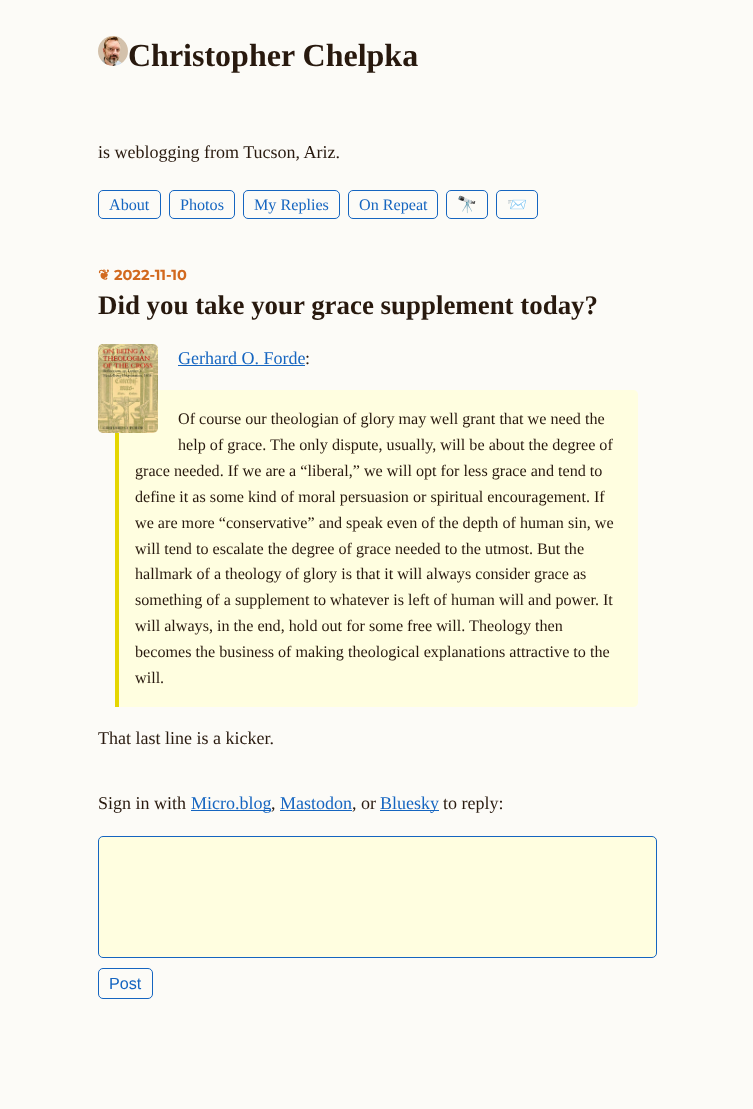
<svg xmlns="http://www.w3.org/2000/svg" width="753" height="1109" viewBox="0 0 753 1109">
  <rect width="100%" height="100%" fill="#fcfbf7"/>
  <image x="98" y="36" width="30" height="30" href="img/1.png"/>
  <rect x="98.5" y="190.5" width="62" height="28" rx="4.5" fill="none" stroke="#1565c0"/>
  <rect x="169.5" y="190.5" width="65" height="28" rx="4.5" fill="none" stroke="#1565c0"/>
  <rect x="243.5" y="190.5" width="96" height="28" rx="4.5" fill="none" stroke="#1565c0"/>
  <rect x="348.5" y="190.5" width="89" height="28" rx="4.5" fill="none" stroke="#1565c0"/>
  <rect x="446.5" y="190.5" width="41" height="28" rx="4.5" fill="none" stroke="#1565c0"/>
  <rect x="496.5" y="190.5" width="41" height="28" rx="4.5" fill="none" stroke="#1565c0"/>
  <path d="M115 390H633C636 390 638 392 638 395V702C638 705 636 707 633 707H115Z" fill="#fffee0"/>
  <image x="98" y="344" width="60" height="89" href="img/2.png"/>
  <path d="M178 365h127v1H178z" fill="#1565c0"/>
  <path d="M115 433h4v274H115z" fill="#e5d600"/>
  <path d="M191 810h80v1H191z" fill="#1565c0"/>
  <path d="M280 810h72v1H280z" fill="#1565c0"/>
  <path d="M380 810h59v1H380z" fill="#1565c0"/>
  <rect x="98.5" y="836.5" width="558" height="121" rx="4.5" fill="#fffee0" stroke="#1565c0"/>
  <rect x="98.5" y="968.5" width="54" height="30" rx="4.5" fill="none" stroke="#1565c0"/>
  <text x="128" y="66" font-family="Liberation Serif" font-size="32" font-weight="bold" fill="#28190e">Christopher Chelpka</text>
  <text x="98" y="158" font-family="Liberation Serif" font-size="18" fill="#28190e">is weblogging from Tucson, Ariz.</text>
  <g font-family="Liberation Serif" font-size="16.15" fill="#1565c0">
    <text x="109" y="210">About</text>
    <text x="180" y="210">Photos</text>
    <text x="254" y="210">My Replies</text>
    <text x="359" y="210">On Repeat</text>
  </g>
  <g font-family="Noto Color Emoji" font-size="16.15" fill="#1565c0">
    <text x="457" y="210">🔭</text>
    <text x="507" y="210">📨</text>
  </g>
  <text x="98" y="280" font-family="DejaVu Sans" font-size="14.5" font-weight="bold" fill="#d2691e">❦</text>
  <text x="114" y="280" font-family="Montserrat" font-size="14.5" font-weight="bold" fill="#d2691e">2022-11-10</text>
  <text x="98" y="314" font-family="Liberation Serif" font-size="26.9" font-weight="bold" fill="#28190e">Did you take your grace supplement today?</text>
  <text x="178" y="364" font-family="Liberation Serif" font-size="18" fill="#1565c0">Gerhard O. Forde</text>
  <text x="305" y="364" font-family="Liberation Serif" font-size="18" fill="#28190e">:</text>
  <g font-family="Liberation Serif" font-size="16.15" fill="#28190e">
    <text x="178" y="424">Of course our theologian of glory may well grant that we need the</text>
    <text x="178" y="450">help of grace. The only dispute, usually, will be about the degree of</text>
    <text x="135" y="476">grace needed. If we are a “liberal,” we will opt for less grace and tend to</text>
    <text x="135" y="502">define it as some kind of moral persuasion or spiritual encouragement. If</text>
    <text x="135" y="528">we are more “conservative” and speak even of the depth of human sin, we</text>
    <text x="135" y="554">will tend to escalate the degree of grace needed to the utmost. But the</text>
    <text x="135" y="579">hallmark of a theology of glory is that it will always consider grace as</text>
    <text x="135" y="605">something of a supplement to whatever is left of human will and power. It</text>
    <text x="135" y="631">will always, in the end, hold out for some free will. Theology then</text>
    <text x="135" y="657">becomes the business of making theological explanations attractive to the</text>
    <text x="135" y="683">will.</text>
  </g>
  <g font-family="Liberation Serif" font-size="18" fill="#28190e">
    <text x="98" y="744">That last line is a kicker.</text>
    <text x="98" y="809">Sign in with</text>
  </g>
  <text x="191" y="809" font-family="Liberation Serif" font-size="18" fill="#1565c0">Micro.blog</text>
  <text x="271" y="809" font-family="Liberation Serif" font-size="18" fill="#28190e">,</text>
  <text x="280" y="809" font-family="Liberation Serif" font-size="18" fill="#1565c0">Mastodon</text>
  <text x="352" y="809" font-family="Liberation Serif" font-size="18" fill="#28190e">, or</text>
  <text x="380" y="809" font-family="Liberation Serif" font-size="18" fill="#1565c0">Bluesky</text>
  <text x="443" y="809" font-family="Liberation Serif" font-size="18" fill="#28190e">to reply:</text>
  <text x="109" y="989" font-family="Liberation Sans" font-size="16.15" fill="#1565c0">Post</text>
</svg>
